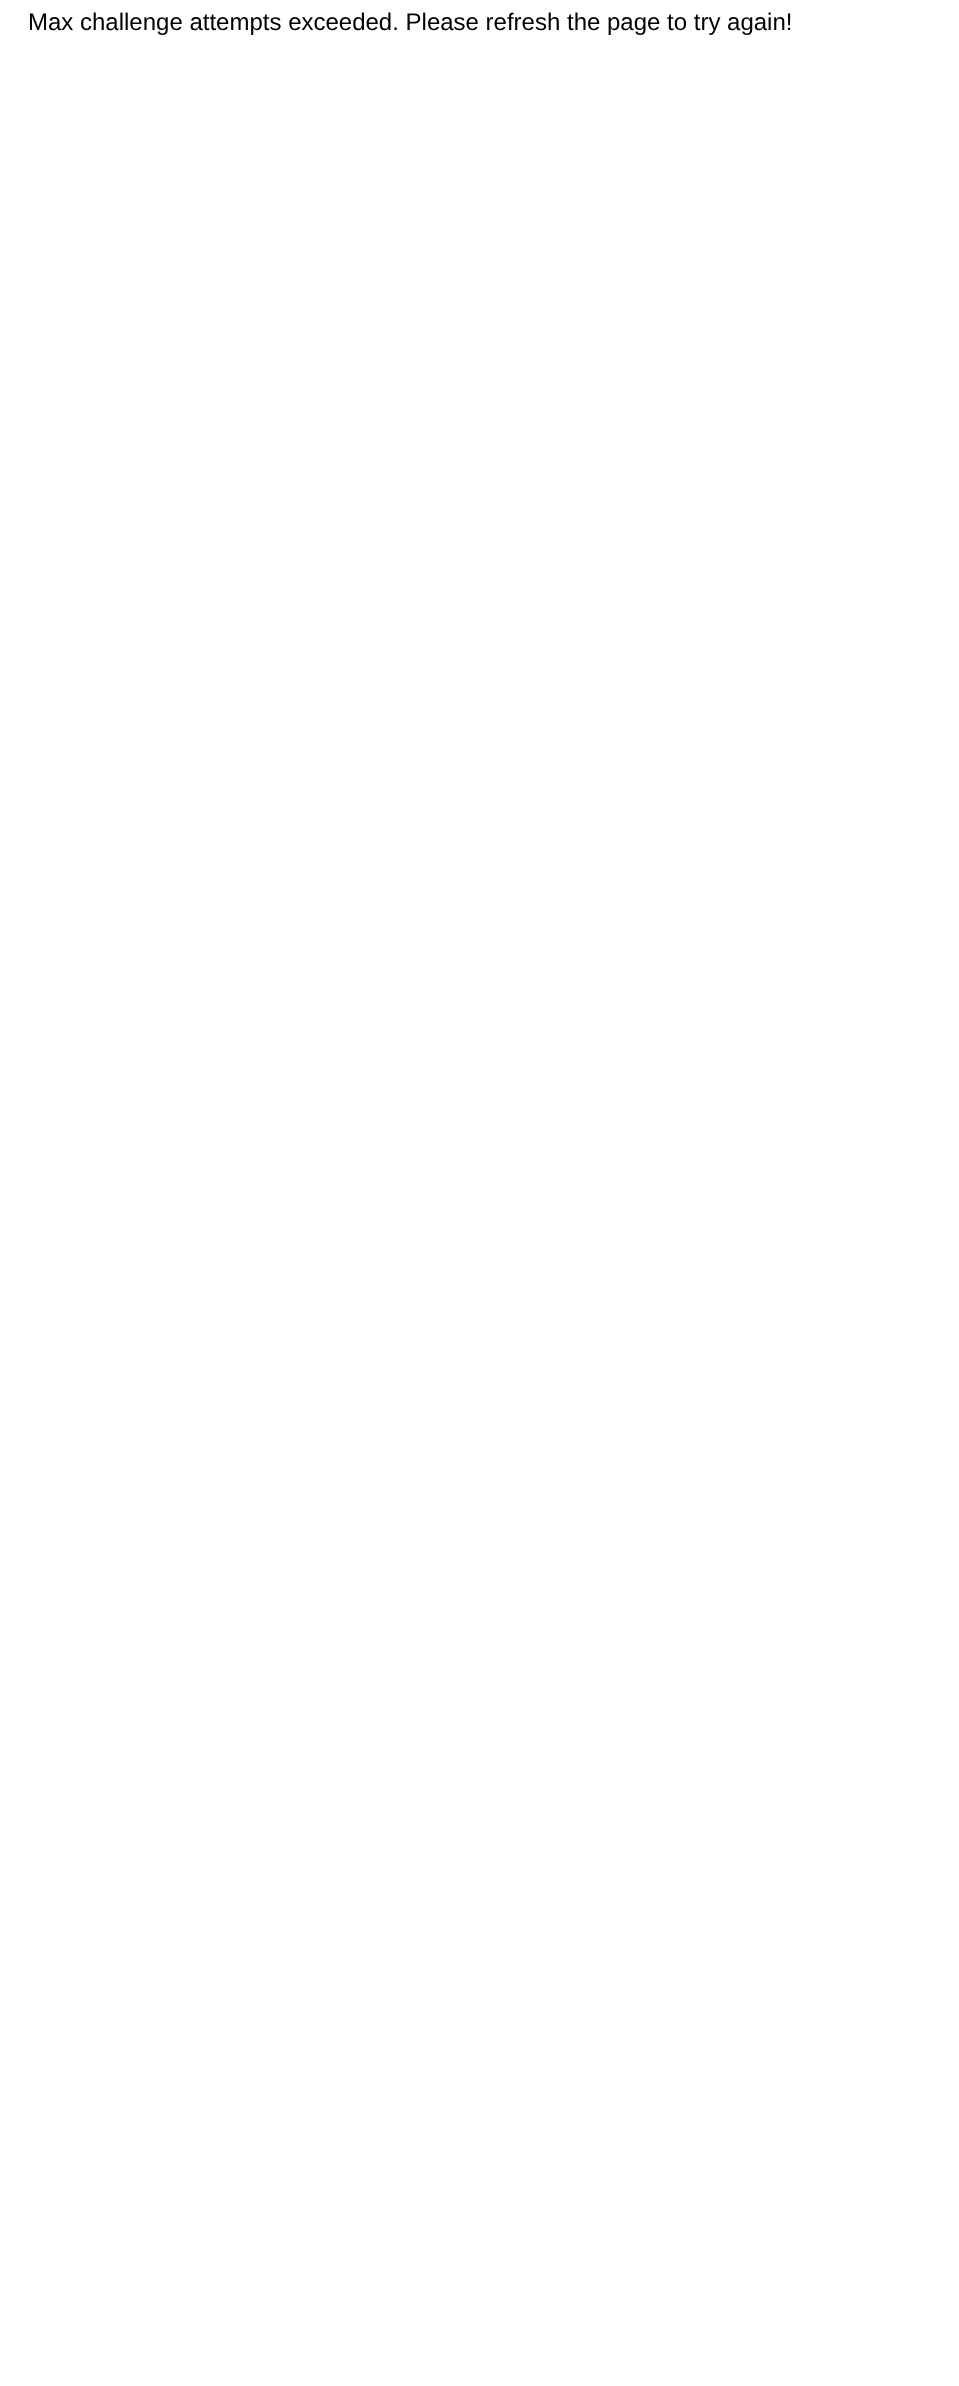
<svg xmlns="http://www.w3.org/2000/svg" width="959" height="2386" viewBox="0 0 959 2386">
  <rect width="100%" height="100%" fill="#fff"/>
  <text x="28" y="30" font-family="Liberation Sans" font-size="24" fill="#000">Max challenge attempts exceeded. Please refresh the page to try again!</text>
</svg>
